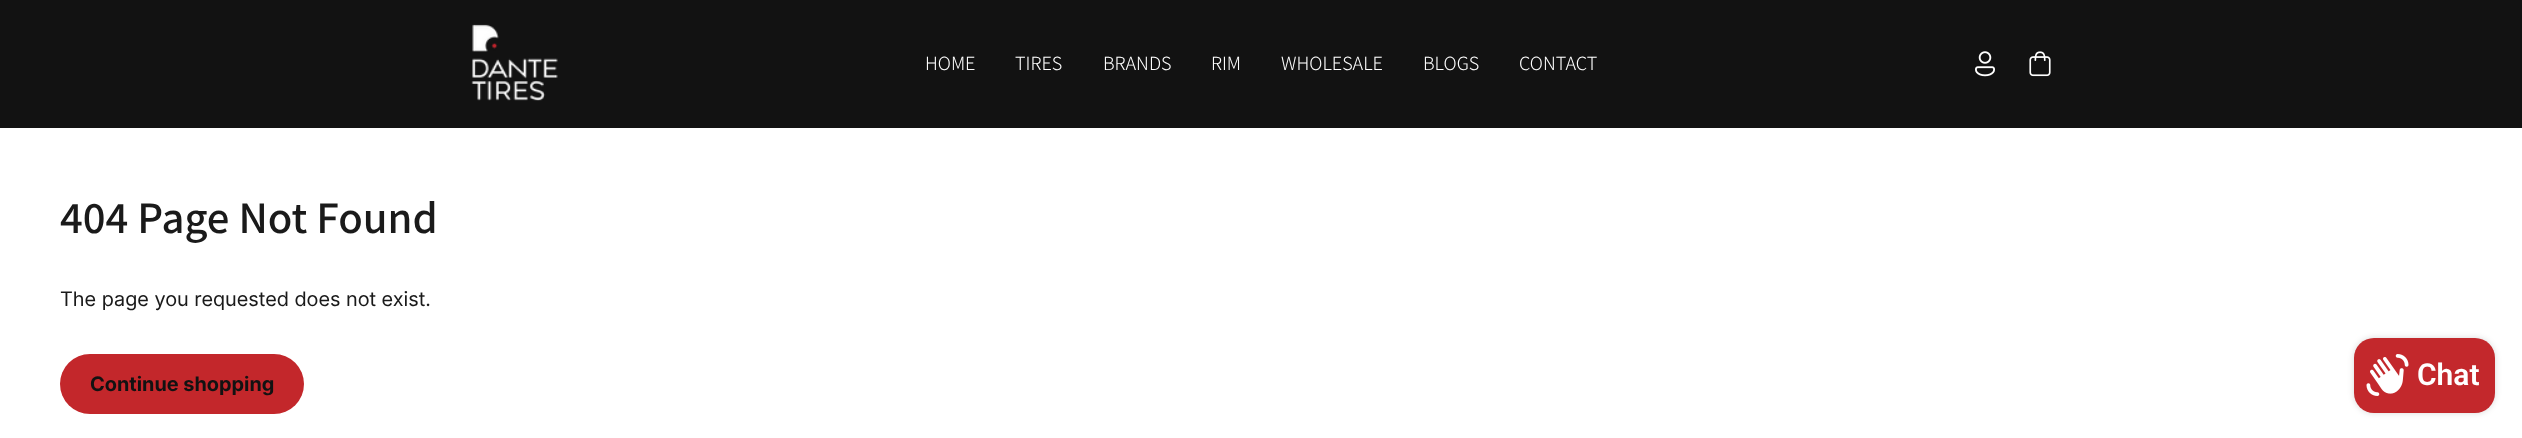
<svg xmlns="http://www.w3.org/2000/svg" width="2522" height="438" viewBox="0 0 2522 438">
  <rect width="100%" height="100%" fill="#fff"/>
  <path d="M0 0h2522v128H0z" fill="#121212"/>
  <image x="471" y="24" width="87" height="77" href="img/1.png"/>
  <image x="1975" y="51" width="20" height="26" href="img/2.png"/>
  <image x="2029" y="51" width="22" height="26" href="img/3.png"/>
  <rect x="60" y="354" width="244" height="60" rx="30" fill="#c3272b"/>
  <rect x="2354" y="338" width="141" height="75" rx="20" fill="#00000026" filter="blur(3px)"/>
  <rect x="2354" y="338" width="141" height="75" rx="20" fill="#c3282c"/>
  <image x="2366" y="354" width="43" height="42" href="img/4.png"/>
  <g font-family="Assistant" font-size="20" font-weight="300" fill="#fff">
    <text x="925" y="70">HOME</text>
    <text x="1015" y="70">TIRES</text>
    <text x="1103" y="70">BRANDS</text>
    <text x="1211" y="70">RIM</text>
    <text x="1281" y="70">WHOLESALE</text>
    <text x="1423" y="70">BLOGS</text>
    <text x="1519" y="70">CONTACT</text>
  </g>
  <text x="60" y="233" font-family="Assistant" font-size="45" font-weight="600" fill="#1a1a1a">404 Page Not Found</text>
  <text x="60" y="306" font-family="Inter" font-size="20" fill="#1a1a1a">The page you requested does not exist.</text>
  <text x="90" y="391" font-family="Inter" font-size="20" font-weight="bold" fill="#121212">Continue shopping</text>
  <text x="2417" y="385" font-family="Roboto" font-size="30" font-weight="600" fill="#fff">Chat</text>
</svg>
